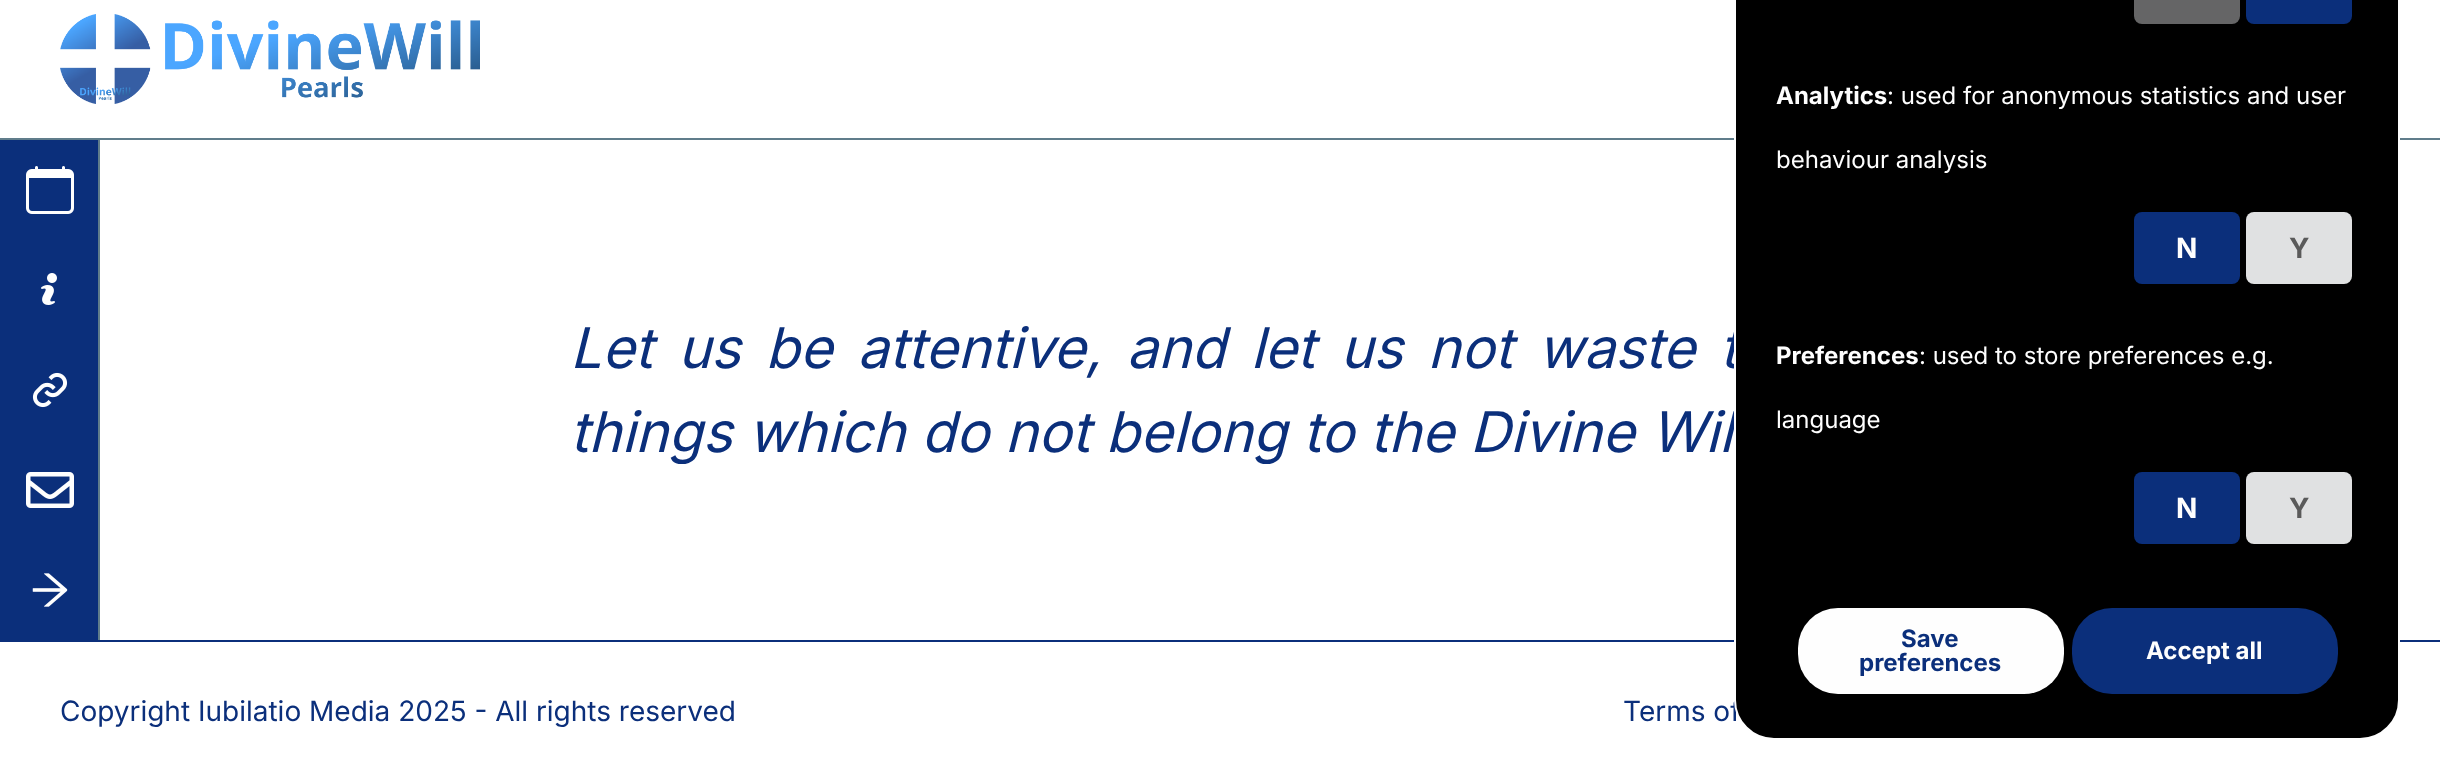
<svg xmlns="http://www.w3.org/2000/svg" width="2440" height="780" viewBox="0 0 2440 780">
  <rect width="100%" height="100%" fill="#fff"/>
  <path d="M0 138h2440v2H0z" fill="#607d8b"/>
  <image x="60" y="14" width="420" height="90" href="img/1.png"/>
  <path d="M0 140h98v500H0z" fill="#0b2f7b"/>
  <path d="M98 140h2v500H98z" fill="#607d8b"/>
  <image x="26" y="166" width="48" height="48" href="img/2.png"/>
  <image x="41" y="273" width="16" height="32" href="img/3.png"/>
  <image x="32" y="372" width="36" height="36" href="img/4.png"/>
  <image x="26" y="472" width="48" height="36" href="img/5.png"/>
  <image x="32" y="573" width="36" height="34" href="img/6.png"/>
  <path d="M0 640h2440v2H0z" fill="#0b2f7b"/>
  <g font-family="Inter" font-size="56" font-style="italic" fill="#0b2f7b">
    <text x="570" y="368" word-spacing="9.25">Let us be attentive, and let us not waste t</text>
    <text x="570" y="452">things which do not belong to the Divine Wil</text>
  </g>
  <g font-family="Inter" font-size="28" fill="#0b2f7b">
    <text x="60" y="721">Copyright Iubilatio Media 2025 - All rights reserved</text>
    <text x="1623" y="721">Terms of</text>
  </g>
  <rect x="1735" y="-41" width="664" height="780" rx="39" fill="#000" stroke="#fefefe" stroke-width="2"/>
  <rect x="2134" y="-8" width="106" height="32" rx="8" fill="#656566"/>
  <rect x="2072" y="608" width="266" height="86" rx="40" fill="#0b2f7b"/>
  <text x="2146" y="659" font-family="Inter" font-size="24" font-weight="bold" fill="#fefefe">Accept all</text>
  <rect x="1798" y="608" width="266" height="86" rx="40" fill="#fefefe"/>
  <g font-family="Inter" font-size="24" font-weight="bold" fill="#0b2f7b">
    <text x="1859" y="671">preferences</text>
    <text x="1901" y="647">Save</text>
  </g>
  <rect x="2246" y="472" width="106" height="72" rx="8" fill="#e0e1e2"/>
  <text x="2289" y="518" font-family="Inter" font-size="28" font-weight="bold" fill="#5a5a5a">Y</text>
  <rect x="2134" y="472" width="106" height="72" rx="8" fill="#0b2f7b"/>
  <text x="2176" y="518" font-family="Inter" font-size="28" font-weight="bold" fill="#fefefe">N</text>
  <g font-family="Inter" font-size="24" fill="#fefefe">
    <text x="1776" y="428">language</text>
    <text x="1919" y="364">: used to store preferences e.g.</text>
  </g>
  <text x="1776" y="364" font-family="Inter" font-size="24" font-weight="bold" fill="#fefefe">Preferences</text>
  <rect x="2246" y="212" width="106" height="72" rx="8" fill="#e0e1e2"/>
  <text x="2289" y="258" font-family="Inter" font-size="28" font-weight="bold" fill="#5a5a5a">Y</text>
  <rect x="2134" y="212" width="106" height="72" rx="8" fill="#0b2f7b"/>
  <text x="2176" y="258" font-family="Inter" font-size="28" font-weight="bold" fill="#fefefe">N</text>
  <g font-family="Inter" font-size="24" fill="#fefefe">
    <text x="1776" y="168">behaviour analysis</text>
    <text x="1887" y="104">: used for anonymous statistics and user</text>
  </g>
  <text x="1776" y="104" font-family="Inter" font-size="24" font-weight="bold" fill="#fefefe">Analytics</text>
  <rect x="2246" y="-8" width="106" height="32" rx="8" fill="#0b2f7b"/>
</svg>
